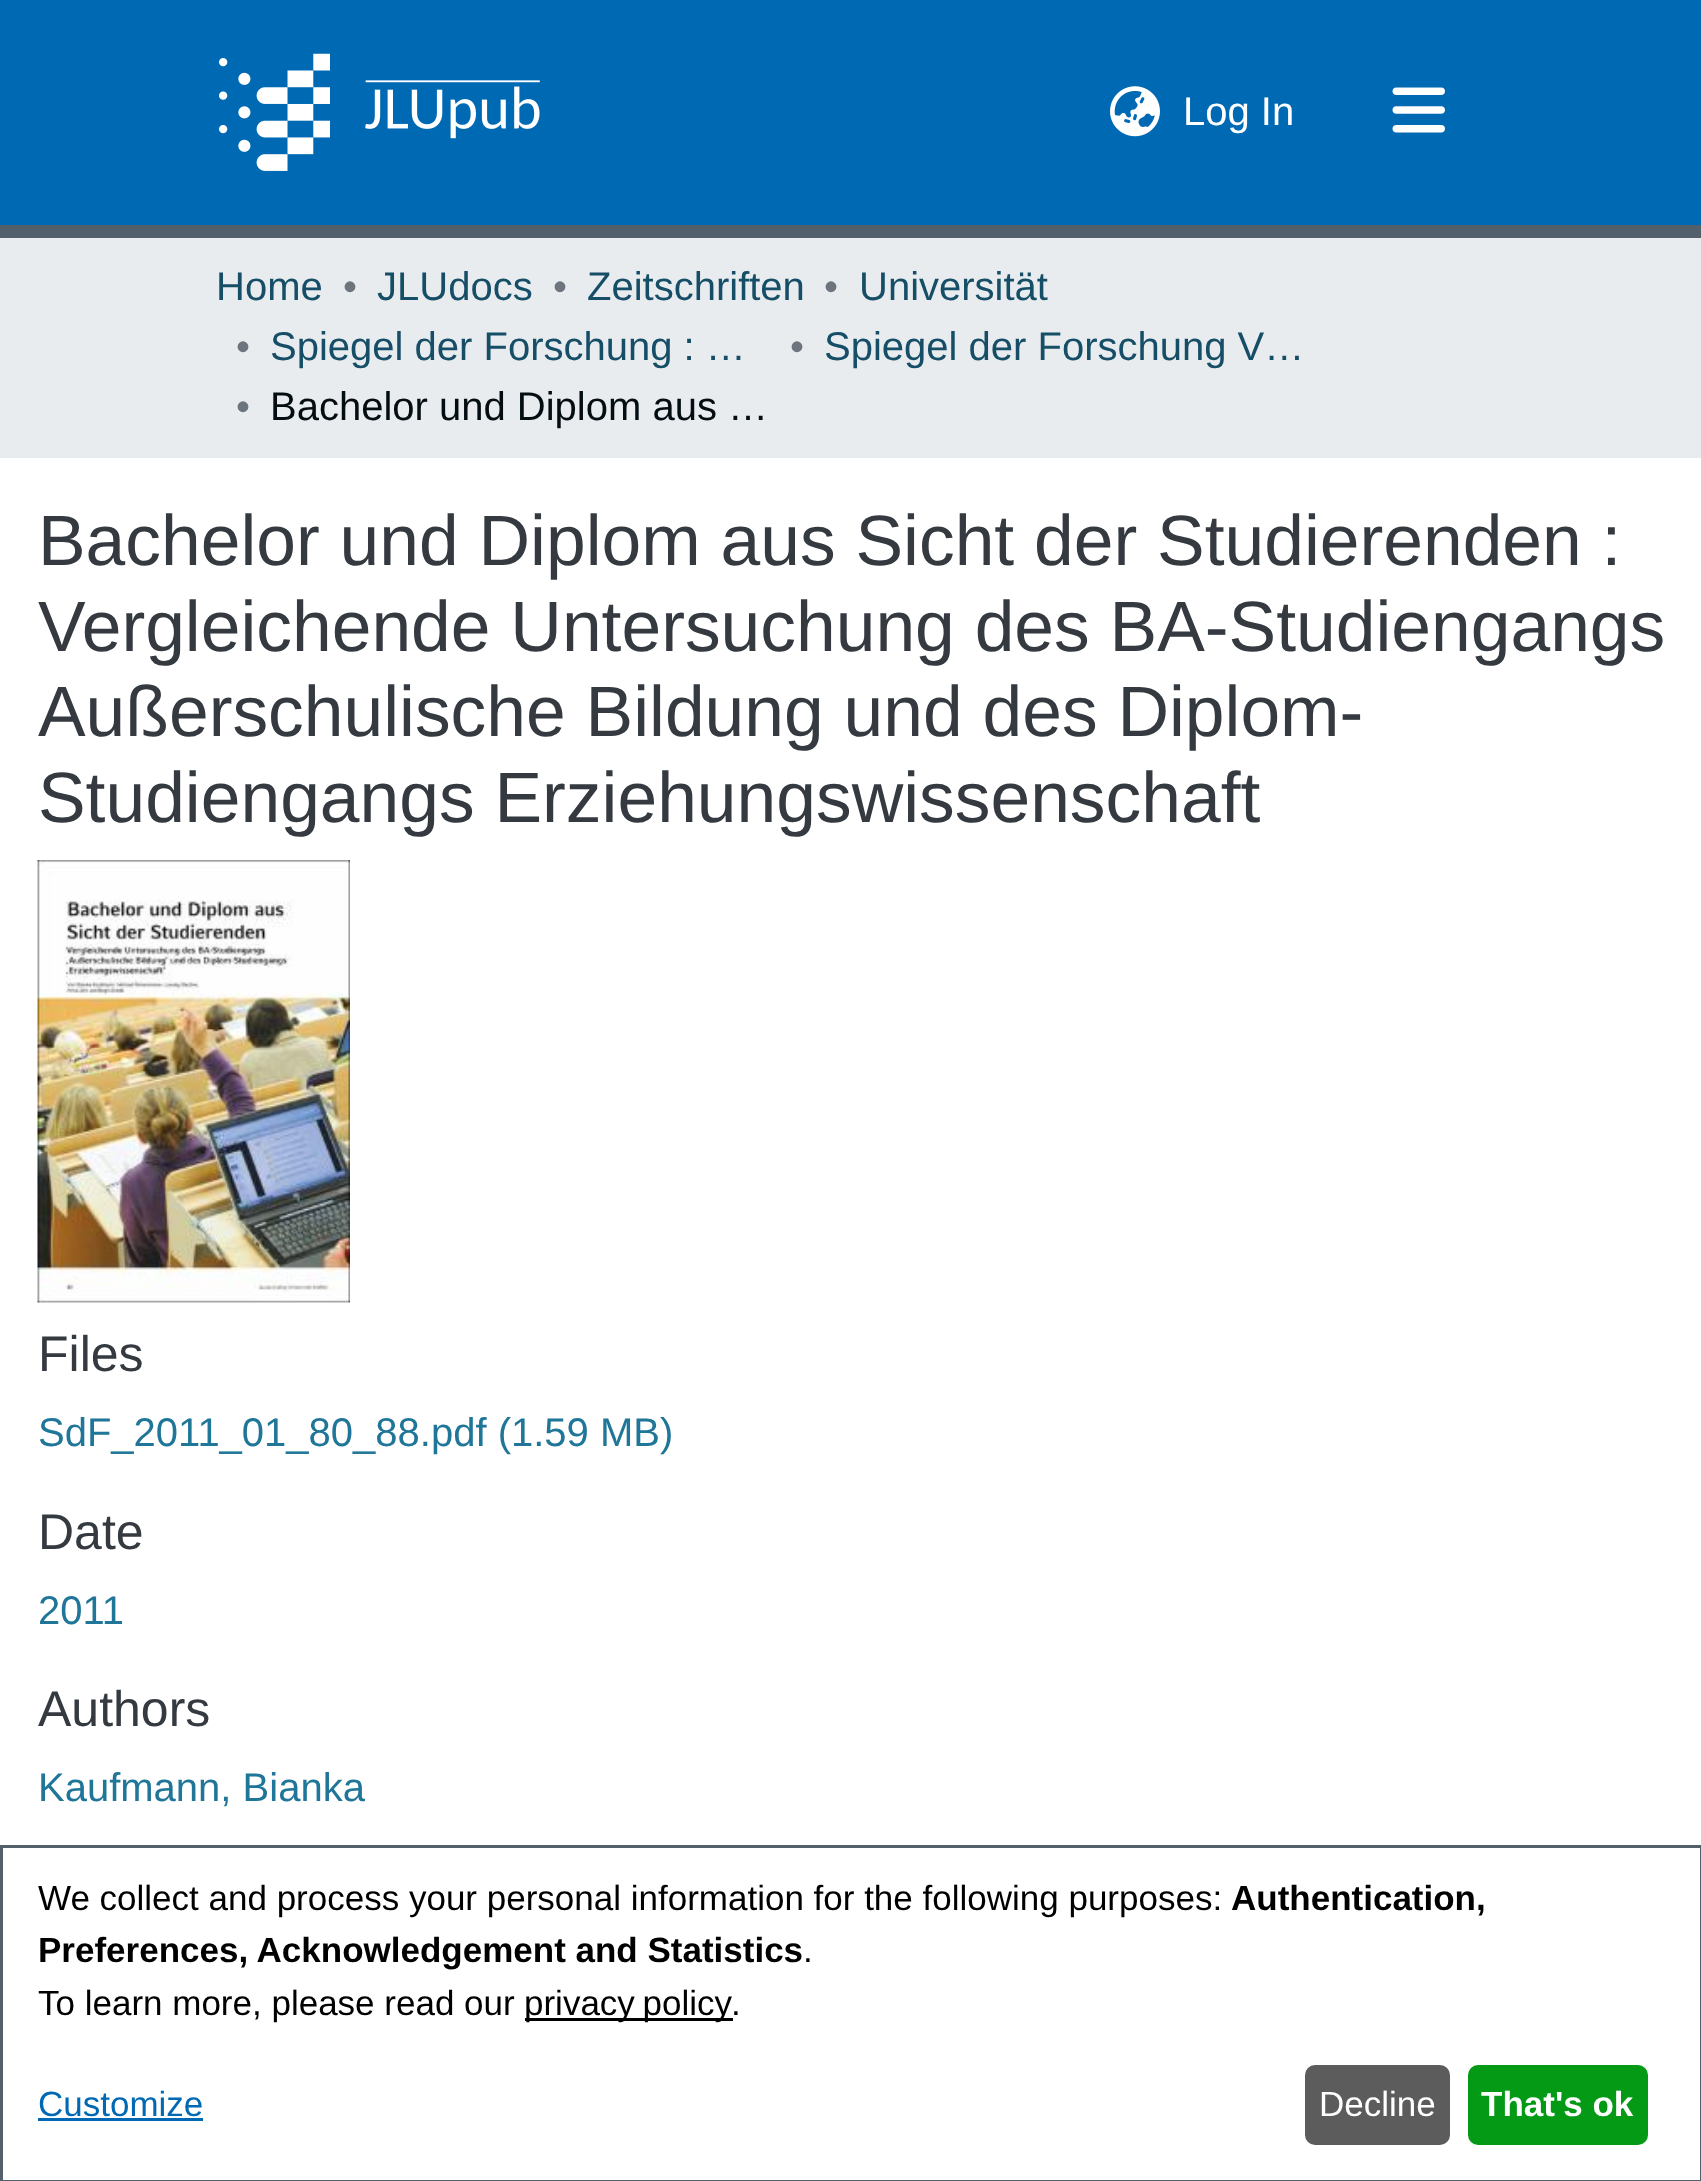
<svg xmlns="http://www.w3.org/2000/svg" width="1701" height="2181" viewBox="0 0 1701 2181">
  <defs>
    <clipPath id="clip1"><path d="M588 258h217v60H588z"/></clipPath>
  </defs>
  <rect width="100%" height="100%" fill="#fff"/>
  <path d="M0 225h1701v13H0z" fill="#53606b"/>
  <path d="M0 0h1701v225H0z" fill="#0069b3"/>
  <image x="219" y="53" width="321" height="118" href="img/1.png"/>
  <image x="1110" y="86" width="50" height="51" href="img/2.png"/>
  <image x="1392" y="87" width="53" height="46" href="img/3.png"/>
  <path d="M0 238h1701v220H0z" fill="#e9ecef"/>
  <image x="37" y="860" width="313" height="443" href="img/4.png"/>
  <path d="M1.5 1846.5h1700v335H1.5z" fill="none" stroke="#53606b" stroke-width="3"/>
  <path d="M525 2018h208v3H525z" fill="#000"/>
  <path d="M38 2118h165v3H38z" fill="#0069b3"/>
  <rect x="1305" y="2065" width="145" height="80" rx="10" fill="#5c5c5c"/>
  <rect x="1468" y="2065" width="180" height="80" rx="10" fill="#049a16"/>
  <text x="1183" y="125" font-family="Liberation Sans" font-size="40" fill="#fff">Log In</text>
  <text x="216" y="300" font-family="Liberation Sans" font-size="40" fill="#154e66">Home</text>
  <text x="343" y="300" font-family="Liberation Sans" font-size="40" fill="#6c757d">•</text>
  <text x="377" y="300" font-family="Liberation Sans" font-size="40" fill="#154e66">JLUdocs</text>
  <text x="553" y="300" font-family="Liberation Sans" font-size="40" fill="#6c757d">•</text>
  <g clip-path="url(#clip1)">
    <text x="587" y="300" font-family="Liberation Sans" font-size="40" fill="#154e66">Zeitschriften</text>
  </g>
  <text x="824" y="300" font-family="Liberation Sans" font-size="40" fill="#6c757d">•</text>
  <text x="859" y="300" font-family="Liberation Sans" font-size="40" fill="#154e66">Universität</text>
  <text x="236" y="360" font-family="Liberation Sans" font-size="40" fill="#6c757d">•</text>
  <text x="270" y="360" font-family="Liberation Sans" font-size="40" fill="#154e66">Spiegel der Forschung : …</text>
  <text x="790" y="360" font-family="Liberation Sans" font-size="40" fill="#6c757d">•</text>
  <text x="824" y="360" font-family="Liberation Sans" font-size="40" fill="#154e66">Spiegel der Forschung V…</text>
  <text x="236" y="420" font-family="Liberation Sans" font-size="40" fill="#6c757d">•</text>
  <text x="270" y="420" font-family="Liberation Sans" font-size="40" fill="#040d11">Bachelor und Diplom aus …</text>
  <g font-family="Liberation Sans" font-size="71.4" fill="#343a40">
    <text x="38" y="565">Bachelor und Diplom aus Sicht der Studierenden :</text>
    <text x="38" y="651">Vergleichende Untersuchung des BA-Studiengangs</text>
    <text x="38" y="736">Außerschulische Bildung und des Diplom-</text>
    <text x="38" y="822">Studiengangs Erziehungswissenschaft</text>
  </g>
  <text x="38" y="1371" font-family="Liberation Sans" font-size="50" fill="#343a40">Files</text>
  <text x="38" y="1446" font-family="Liberation Sans" font-size="40" fill="#207698">SdF_2011_01_80_88.pdf (1.59 MB)</text>
  <text x="38" y="1549" font-family="Liberation Sans" font-size="50" fill="#343a40">Date</text>
  <text x="38" y="1624" font-family="Liberation Sans" font-size="40" fill="#207698">2011</text>
  <text x="38" y="1726" font-family="Liberation Sans" font-size="50" fill="#343a40">Authors</text>
  <text x="38" y="1801" font-family="Liberation Sans" font-size="40" fill="#207698">Kaufmann, Bianka</text>
  <text x="38" y="1910" font-family="Liberation Sans" font-size="35" fill="#000">We collect and process your personal information for the following purposes:</text>
  <g font-family="Liberation Sans" font-size="35" font-weight="bold" fill="#000">
    <text x="1231" y="1910">Authentication,</text>
    <text x="38" y="1962">Preferences, Acknowledgement and Statistics</text>
  </g>
  <g font-family="Liberation Sans" font-size="35" fill="#000">
    <text x="803" y="1962">.</text>
    <text x="38" y="2015">To learn more, please read our</text>
    <text x="524" y="2015" word-spacing="-2">privacy policy</text>
    <text x="731" y="2015">.</text>
  </g>
  <text x="38" y="2116" font-family="Liberation Sans" font-size="35" fill="#0069b3">Customize</text>
  <text x="1319" y="2116" font-family="Liberation Sans" font-size="35" fill="#fff">Decline</text>
  <text x="1481" y="2116" font-family="Liberation Sans" font-size="35" font-weight="bold" fill="#fff">That's ok</text>
</svg>
